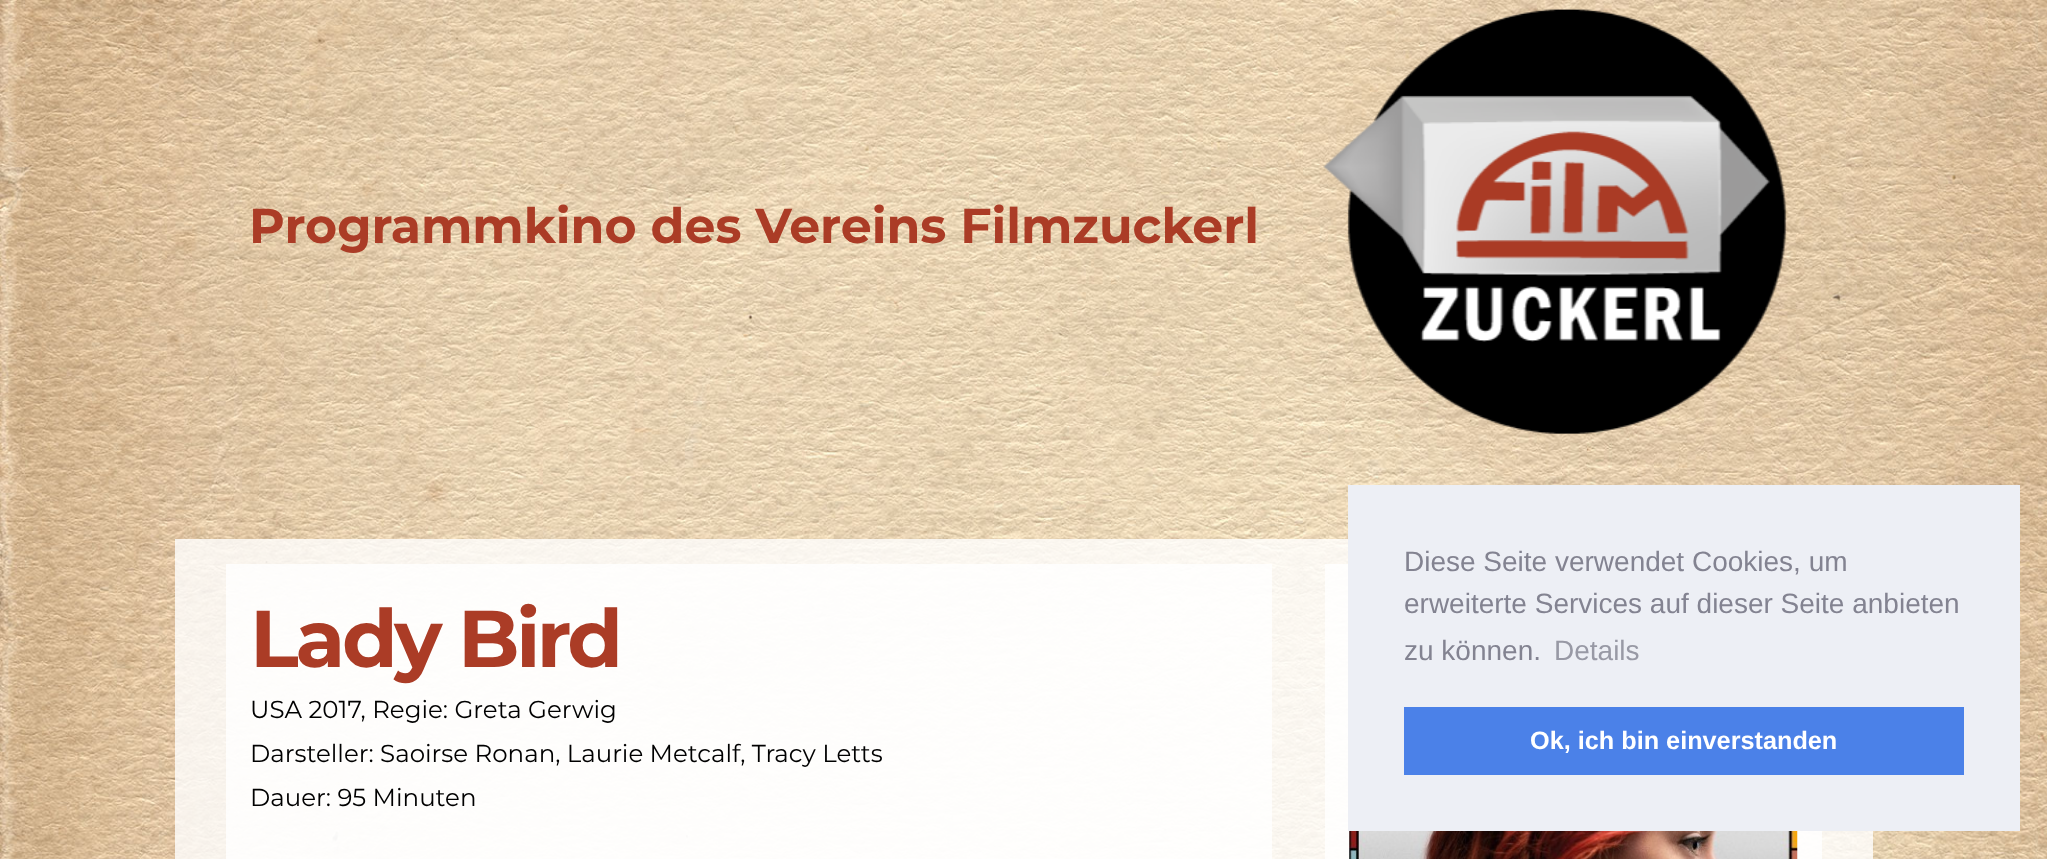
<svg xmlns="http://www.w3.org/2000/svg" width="2047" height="859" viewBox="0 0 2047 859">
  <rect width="100%" height="100%" fill="#fff"/>
  <image x="0" y="0" width="2047" height="859" href="img/1.png"/>
  <image x="1323" y="9" width="464" height="425" href="img/2.png"/>
  <path d="M175 539h1698v320H175z" fill="#ffffffcc"/>
  <path d="M226 564h1046v295H226z" fill="#ffffffcc"/>
  <path d="M1325 564h497v295H1325z" fill="#ffffffcc"/>
  <image x="1349" y="831" width="449" height="28" href="img/3.png"/>
  <path d="M1348 485h672v346H1348z" fill="#edeff5"/>
  <path d="M1404 707h560v68H1404z" fill="#4b81e8"/>
  <text x="249" y="243" font-family="Montserrat" font-size="49" font-weight="bold" fill="#ab3c26">Programmkino des Vereins Filmzuckerl</text>
  <text x="250" y="667" font-family="Montserrat" font-size="80.5" font-weight="bold" letter-spacing="-3.5" fill="#ab3c26">Lady Bird</text>
  <g font-family="Montserrat" font-size="24.5" fill="#000">
    <text x="250" y="718">USA 2017, Regie: Greta Gerwig</text>
    <text x="250" y="762">Darsteller: Saoirse Ronan, Laurie Metcalf, Tracy Letts</text>
    <text x="250" y="806">Dauer: 95 Minuten</text>
  </g>
  <g font-family="Liberation Sans" font-size="28" fill="#838391">
    <text x="1404" y="571">Diese Seite verwendet Cookies, um</text>
    <text x="1404" y="613">erweiterte Services auf dieser Seite anbieten</text>
    <text x="1404" y="660">zu können.</text>
  </g>
  <text x="1554" y="660" font-family="Liberation Sans" font-size="28" fill="#9899a5">Details</text>
  <text x="1530" y="749" font-family="Liberation Sans" font-size="25.25" font-weight="bold" fill="#fff">Ok, ich bin einverstanden</text>
</svg>
